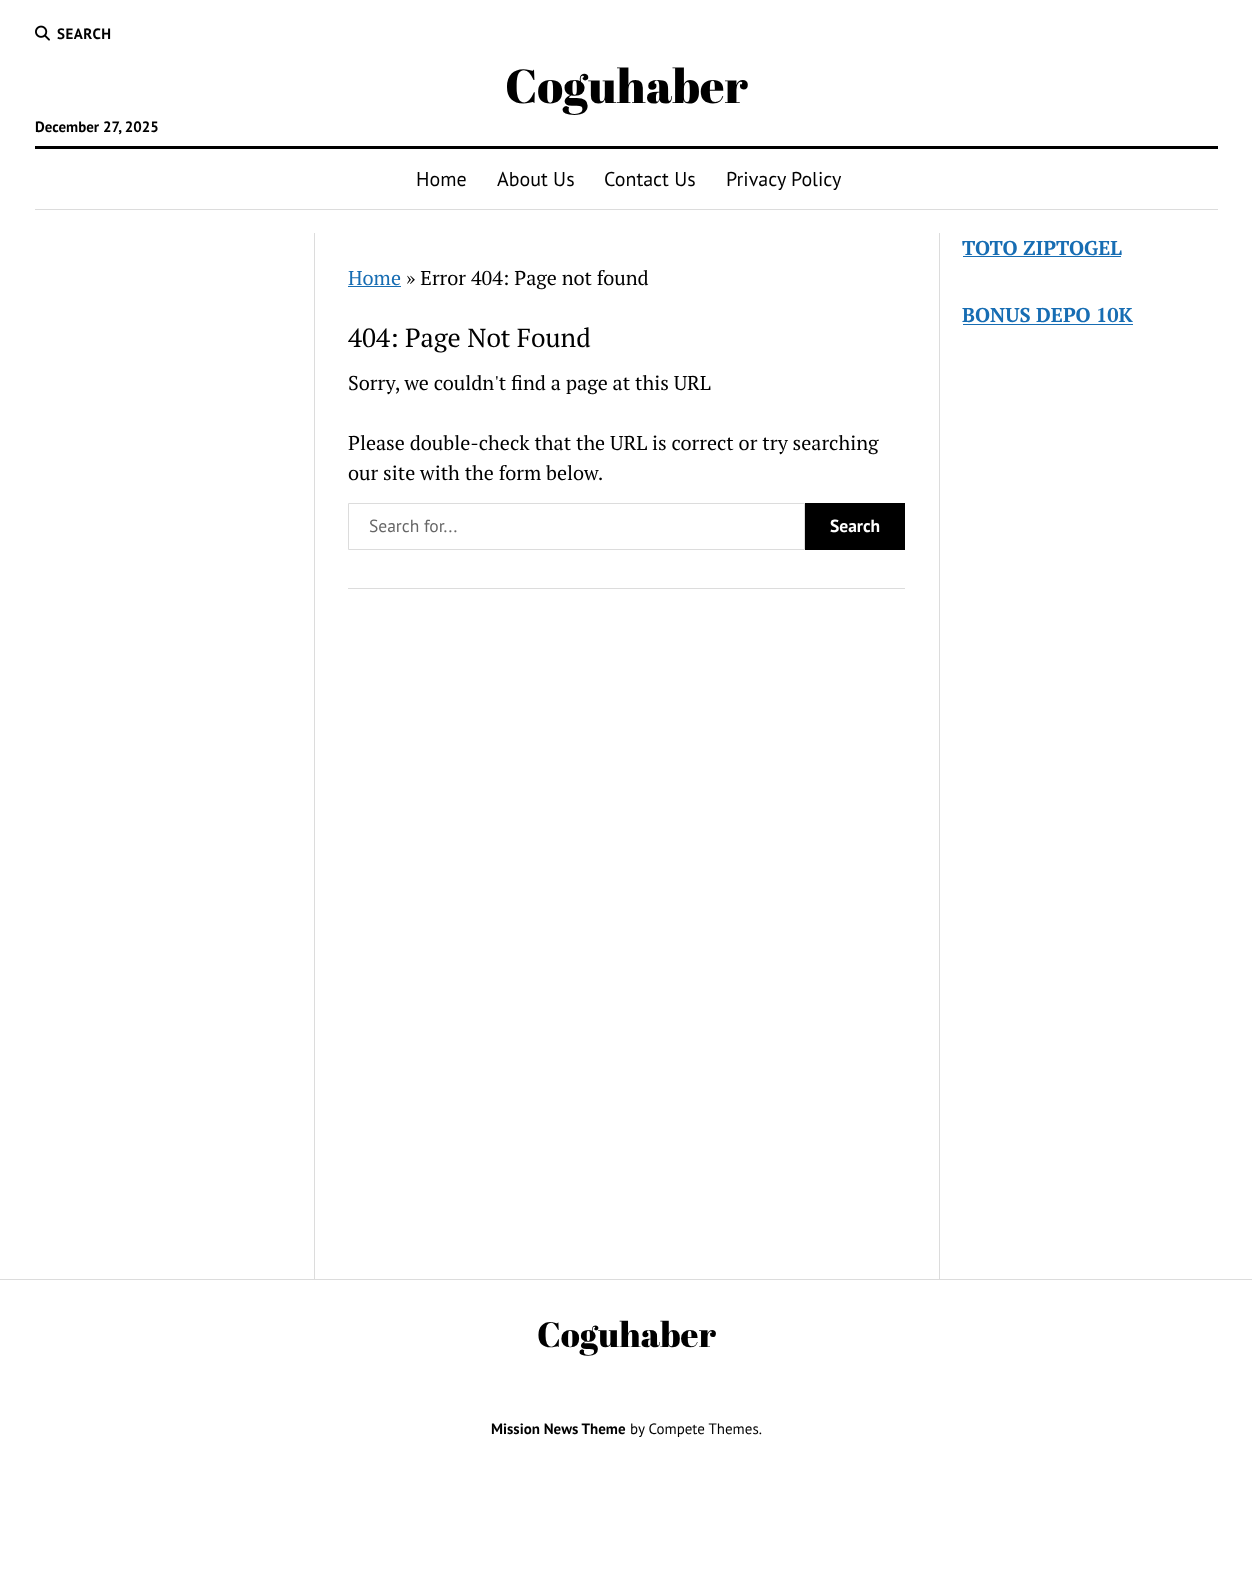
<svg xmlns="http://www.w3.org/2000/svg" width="1252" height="1583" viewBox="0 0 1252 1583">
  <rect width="100%" height="100%" fill="#fff"/>
  <image x="35" y="25" width="15" height="16" href="img/1.png"/>
  <path d="M35 146h1183v3H35z" fill="#000"/>
  <path d="M35 209h1183v1H35z" fill="#dcdcdc"/>
  <path d="M314 233h1v1046H314z" fill="#dcdcdc"/>
  <path d="M939 233h1v1046H939z" fill="#dcdcdc"/>
  <path d="M348 286h53v1H348z" fill="#176db3"/>
  <path d="M348 588h557v1H348z" fill="#dcdcdc"/>
  <path d="M348.5 503.5h456v46H348.5z" fill="none" stroke="#dcdcdc"/>
  <path d="M805 503h100v47H805z" fill="#000"/>
  <path d="M963 256h158v1H963z" fill="#176db3"/>
  <path d="M963 324h170v1H963z" fill="#176db3"/>
  <path d="M0 1279h1252v1H0z" fill="#dcdcdc"/>
  <text x="57" y="39" font-family="PT Sans" font-size="15" font-weight="bold" letter-spacing="0.5" fill="#000">SEARCH</text>
  <text x="505" y="103" font-family="Abril Fatface" font-size="47.5" fill="#000">Coguhaber</text>
  <text x="35" y="132" font-family="PT Sans" font-size="15" font-weight="bold" fill="#000">December 27, 2025</text>
  <g font-family="PT Sans" font-size="20" fill="#000">
    <text x="416" y="186">Home</text>
    <text x="497" y="186">About Us</text>
    <text x="604" y="186">Contact Us</text>
    <text x="726" y="186">Privacy Policy</text>
  </g>
  <text x="348" y="285" font-family="PT Serif" font-size="20" fill="#176db3">Home</text>
  <text x="406" y="285" font-family="PT Serif" font-size="20" fill="#000">» Error 404: Page not found</text>
  <text x="348" y="347" font-family="PT Serif" font-size="26.25" fill="#000">404: Page Not Found</text>
  <g font-family="PT Serif" font-size="20" fill="#000">
    <text x="348" y="390">Sorry, we couldn't find a page at this URL</text>
    <text x="348" y="450">Please double-check that the URL is correct or try searching</text>
    <text x="348" y="480">our site with the form below.</text>
  </g>
  <text x="369" y="532" font-family="PT Sans" font-size="17.5" fill="#666">Search for...</text>
  <text x="830" y="532" font-family="PT Sans" font-size="17.5" font-weight="bold" fill="#fff">Search</text>
  <g font-family="PT Serif" font-size="20" font-weight="bold" fill="#176db3">
    <text x="962" y="255">TOTO ZIPTOGEL</text>
    <text x="962" y="322">BONUS DEPO 10K</text>
  </g>
  <text x="537" y="1347" font-family="Abril Fatface" font-size="35" fill="#000">Coguhaber</text>
  <text x="491" y="1434" font-family="PT Sans" font-size="15" font-weight="bold" fill="#000">Mission News Theme</text>
  <text x="630" y="1434" font-family="PT Sans" font-size="15" fill="#000">by Compete Themes.</text>
</svg>
